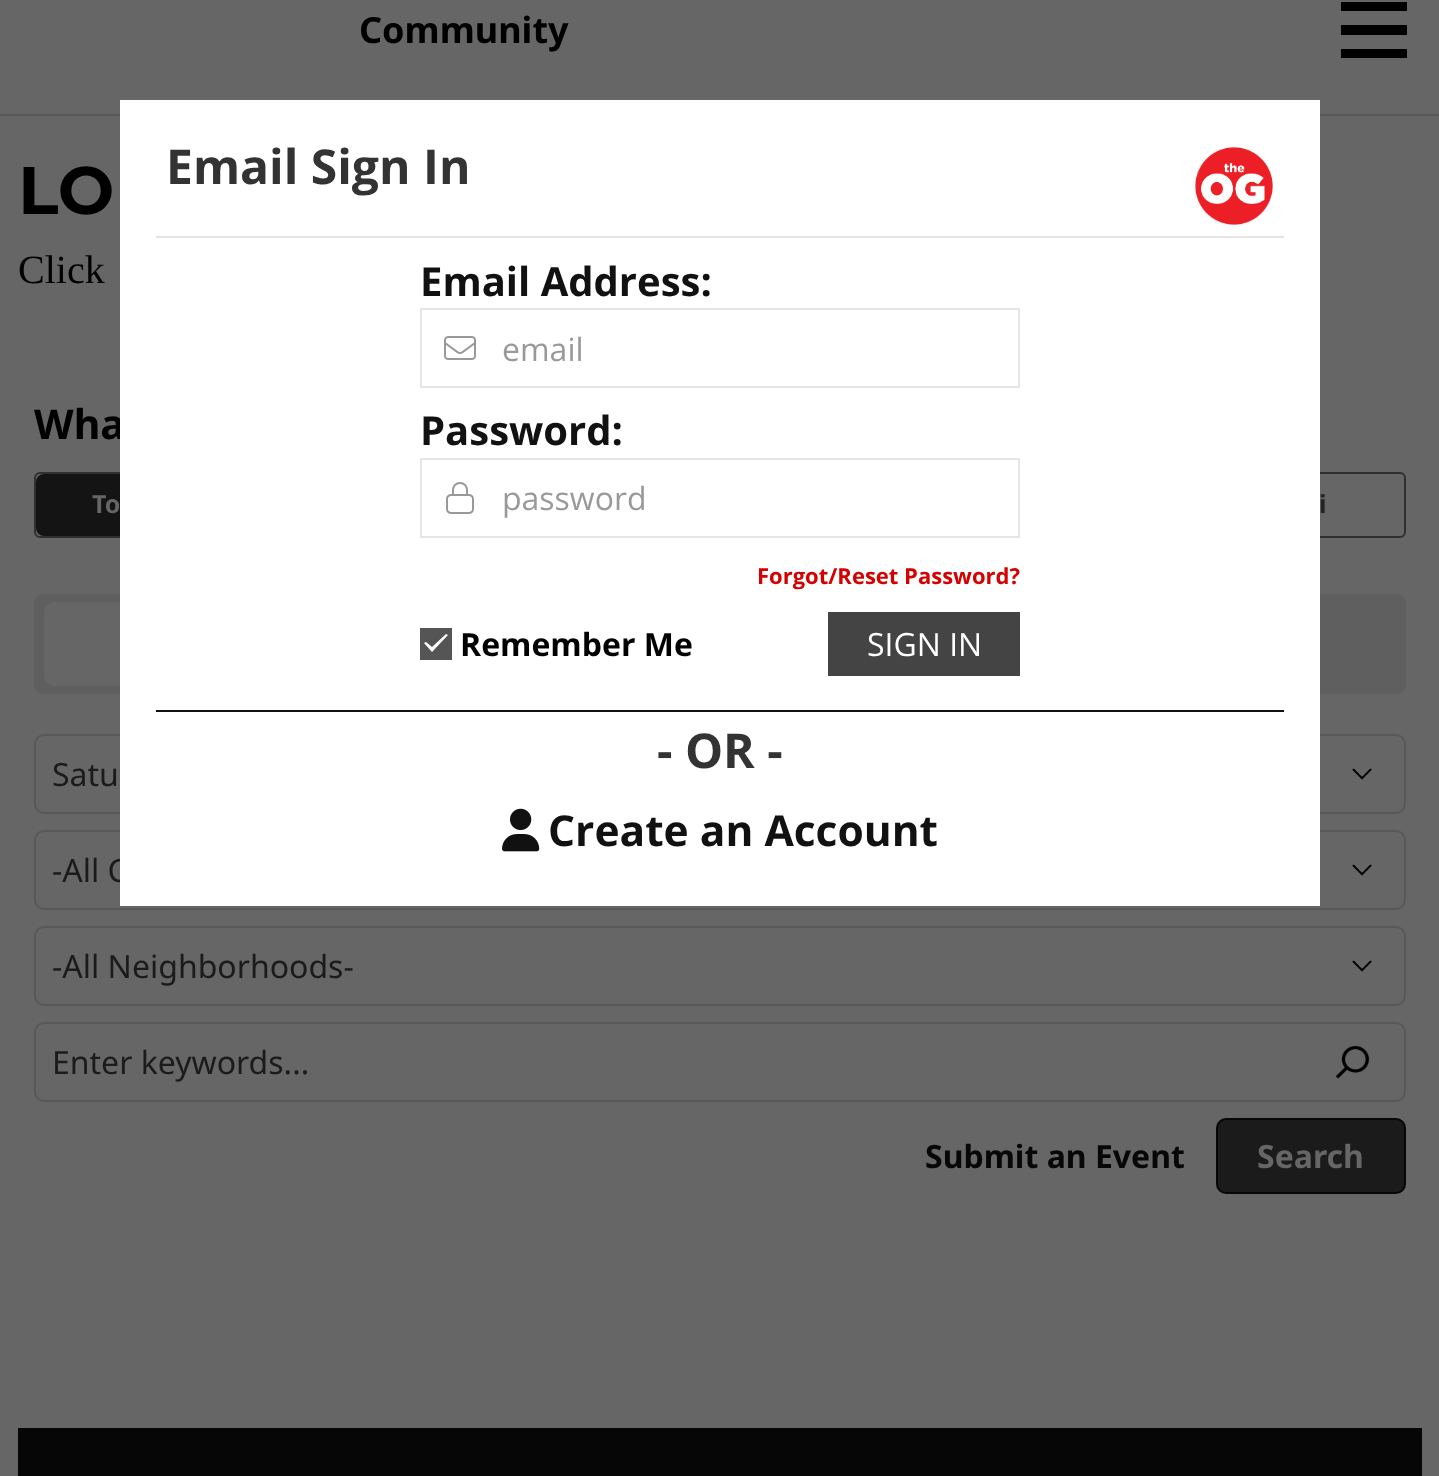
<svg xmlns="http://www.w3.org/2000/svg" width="1439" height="1476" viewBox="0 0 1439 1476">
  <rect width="100%" height="100%" fill="#666"/>
  <path d="M0 114h1439v2H0z" fill="#585858"/>
  <path d="M1341 2h66v9H1341z" fill="#000"/>
  <path d="M1341 25h66v10H1341z" fill="#000"/>
  <path d="M1341 49h66v9H1341z" fill="#000"/>
  <rect x="35" y="473" width="1370" height="64" rx="5" fill="none" stroke="#303030" stroke-width="2"/>
  <rect x="36" y="474" width="186" height="62" rx="8" fill="#141414"/>
  <rect x="34" y="594" width="1372" height="100" rx="10" fill="#5f5f5f"/>
  <rect x="44" y="602" width="322" height="84" rx="10" fill="#666"/>
  <image x="1352" y="768" width="20" height="12" href="img/1.png"/>
  <rect x="35" y="735" width="1370" height="78" rx="9" fill="none" stroke="#585858" stroke-width="2"/>
  <image x="1352" y="864" width="20" height="12" href="img/1.png"/>
  <rect x="35" y="831" width="1370" height="78" rx="9" fill="none" stroke="#585858" stroke-width="2"/>
  <image x="1352" y="960" width="20" height="12" href="img/1.png"/>
  <rect x="35" y="927" width="1370" height="78" rx="9" fill="none" stroke="#585858" stroke-width="2"/>
  <image x="1335" y="1045" width="35" height="34" href="img/2.png"/>
  <rect x="35" y="1023" width="1370" height="78" rx="9" fill="none" stroke="#585858" stroke-width="2"/>
  <rect x="1217" y="1119" width="188" height="74" rx="9" fill="#1b1b1b" stroke="#070707" stroke-width="2"/>
  <path d="M18 1428h1404v48H18z" fill="#060606"/>
  <text x="359" y="43" font-family="Noto Sans" font-size="36" font-weight="bold" fill="#000">Community</text>
  <text x="18" y="214" font-family="Montserrat" font-size="67" font-weight="bold" fill="#000">LO</text>
  <text x="18" y="283" font-family="Liberation Serif" font-size="40" fill="#000">Click</text>
  <text x="34" y="439" font-family="Noto Sans" font-size="41" font-weight="bold" fill="#000">Wha</text>
  <text x="92" y="513" font-family="Noto Sans" font-size="25" font-weight="bold" fill="#666">To</text>
  <text x="1319" y="513" font-family="Noto Sans" font-size="25" font-weight="bold" fill="#242424">i</text>
  <g font-family="Noto Sans" font-size="32" fill="#1b1b1b">
    <text x="52" y="786">Satu</text>
    <text x="52" y="882">-All C</text>
    <text x="52" y="978">-All Neighborhoods-</text>
    <text x="52" y="1074">Enter keywords...</text>
  </g>
  <text x="925" y="1168" font-family="Noto Sans" font-size="32" font-weight="bold" fill="#070707">Submit an Event</text>
  <text x="1257" y="1168" font-family="Noto Sans" font-size="32" font-weight="bold" fill="#666">Search</text>
  <path d="M120 100h1200v806H120z" fill="#fff"/>
  <path d="M156 236h1128v2H156z" fill="#e5e5e5"/>
  <text x="166" y="184" font-family="Open Sans" font-size="48" font-weight="bold" fill="#333">Email Sign In</text>
  <image x="1195" y="147" width="78" height="78" href="img/3.png"/>
  <text x="420" y="296" font-family="Open Sans" font-size="40" font-weight="bold" fill="#111">Email Address:</text>
  <path d="M421 309h598v78H421z" fill="none" stroke="#e5e5e5" stroke-width="2"/>
  <image x="444" y="336" width="32" height="24" href="img/4.png"/>
  <text x="502" y="361" font-family="Open Sans" font-size="32" fill="#999">email</text>
  <text x="420" y="445" font-family="Open Sans" font-size="40" font-weight="bold" fill="#111">Password:</text>
  <path d="M421 459h598v78H421z" fill="none" stroke="#e5e5e5" stroke-width="2"/>
  <image x="446" y="482" width="28" height="32" href="img/5.png"/>
  <text x="502" y="510" font-family="Open Sans" font-size="32" fill="#999">password</text>
  <text x="757" y="584" font-family="Open Sans" font-size="22" font-weight="bold" fill="#d50000">Forgot/Reset Password?</text>
  <path d="M420 628h32v32H420z" fill="#555"/>
  <path d="M446 634L432 647L426 642L424 643L432 652L448 635Z" fill="#fff"/>
  <text x="460" y="656" font-family="Open Sans" font-size="32" font-weight="bold" fill="#000">Remember Me</text>
  <path d="M828 612h192v64H828z" fill="#444"/>
  <text x="867" y="656" font-family="Open Sans" font-size="32" fill="#fff">SIGN IN</text>
  <path d="M156 710h1128v2H156z" fill="#111"/>
  <text x="657" y="768" font-family="Open Sans" font-size="48" font-weight="bold" fill="#333">- OR -</text>
  <image x="502" y="808" width="38" height="44" href="img/6.png"/>
  <text x="548" y="846" font-family="Open Sans" font-size="42.5" font-weight="bold" fill="#111">Create an Account</text>
</svg>
